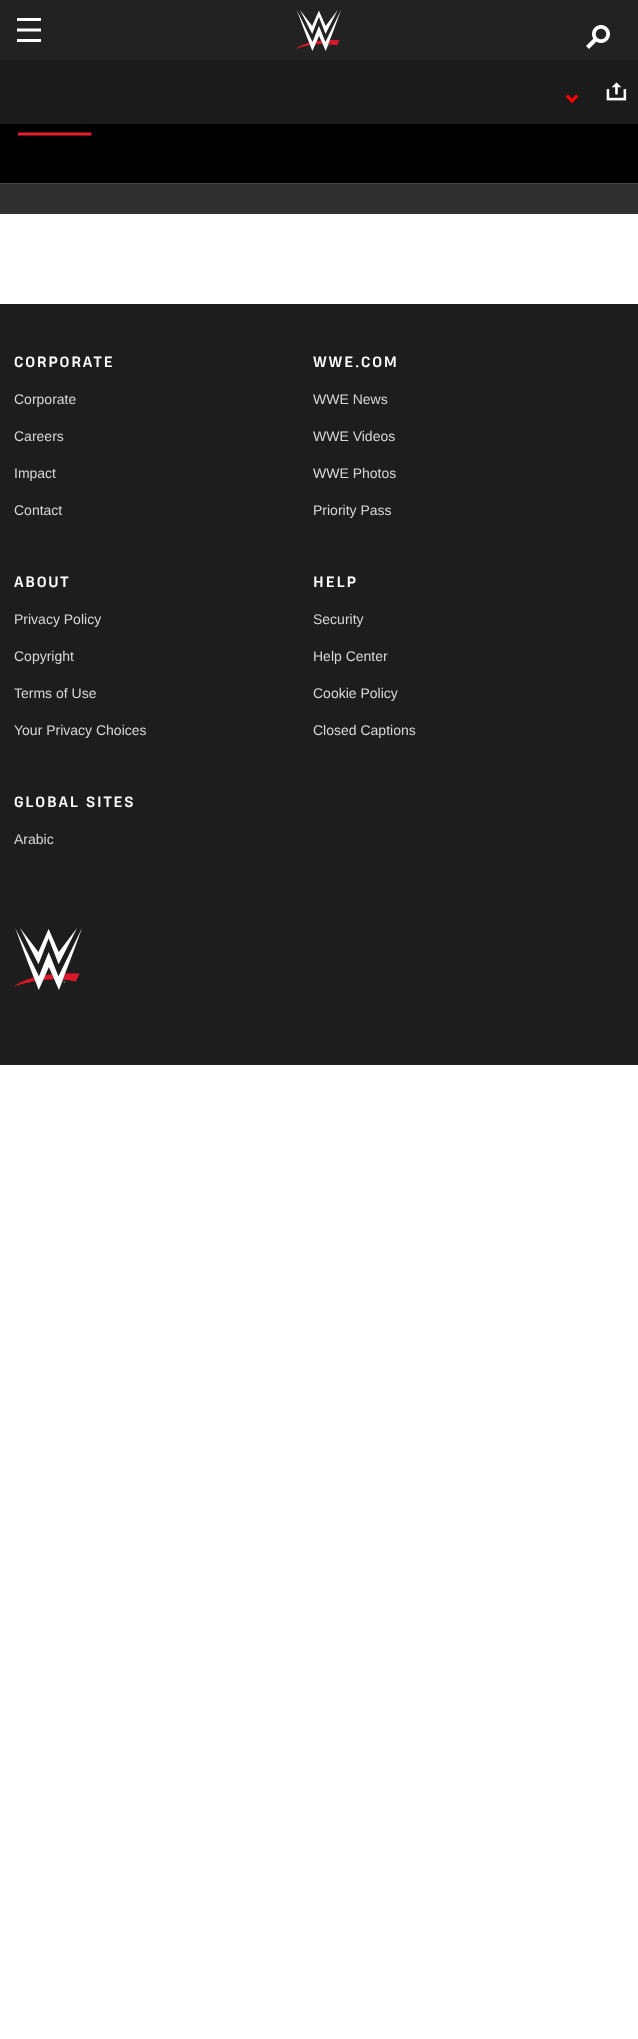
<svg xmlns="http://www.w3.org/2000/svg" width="638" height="2039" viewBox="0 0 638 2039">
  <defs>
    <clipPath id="clip1"><path d="M18 131h90v5H18z"/></clipPath>
  </defs>
  <rect width="100%" height="100%" fill="#fff"/>
  <path d="M0 0h638v60H0z" fill="#222"/>
  <image x="17" y="18" width="24" height="24" href="img/1.png"/>
  <image x="296" y="10" width="45" height="41" href="img/2.png"/>
  <image x="586" y="25" width="24" height="24" href="img/3.png"/>
  <path d="M0 184h638v30H0z" fill="#303030"/>
  <path d="M0 60h638v64H0z" fill="#1b1b1b"/>
  <path d="M576 94.5L578.5 96.5L572 103L570 101Z" fill="#f00"/>
  <path d="M568 94.5L574 101L572 103L565.5 96.5Z" fill="#f00"/>
  <image x="606" y="82" width="21" height="19" href="img/4.png"/>
  <path d="M0 124h638v59H0z" fill="#000"/>
  <path d="M0 183h638v1H0z" fill="#474747"/>
  <g clip-path="url(#clip1)">
    <path d="M1.5 134H91.5" fill="none" stroke="#e7202f" stroke-width="3"/>
  </g>
  <path d="M0 304h638v761H0z" fill="#1d1d1d"/>
  <image x="14" y="928" width="68" height="62" href="img/5.png"/>
  <text x="14" y="367" font-family="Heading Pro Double" font-size="14" font-weight="bold" letter-spacing="1.75" fill="#fff">CORPORATE</text>
  <g font-family="Liberation Sans" font-size="14" fill="#d8d8d8">
    <text x="14" y="404">Corporate</text>
    <text x="14" y="441">Careers</text>
    <text x="14" y="478">Impact</text>
    <text x="14" y="515">Contact</text>
  </g>
  <text x="313" y="367" font-family="Heading Pro Double" font-size="14" font-weight="bold" letter-spacing="1.75" fill="#fff">WWE.COM</text>
  <g font-family="Liberation Sans" font-size="14" fill="#d8d8d8">
    <text x="313" y="404">WWE News</text>
    <text x="313" y="441">WWE Videos</text>
    <text x="313" y="478">WWE Photos</text>
    <text x="313" y="515">Priority Pass</text>
  </g>
  <text x="14" y="587" font-family="Heading Pro Double" font-size="14" font-weight="bold" letter-spacing="1.75" fill="#fff">ABOUT</text>
  <g font-family="Liberation Sans" font-size="14" fill="#d8d8d8">
    <text x="14" y="624">Privacy Policy</text>
    <text x="14" y="661">Copyright</text>
    <text x="14" y="698">Terms of Use</text>
    <text x="14" y="735">Your Privacy Choices</text>
  </g>
  <text x="313" y="587" font-family="Heading Pro Double" font-size="14" font-weight="bold" letter-spacing="1.75" fill="#fff">HELP</text>
  <g font-family="Liberation Sans" font-size="14" fill="#d8d8d8">
    <text x="313" y="624">Security</text>
    <text x="313" y="661">Help Center</text>
    <text x="313" y="698">Cookie Policy</text>
    <text x="313" y="735">Closed Captions</text>
  </g>
  <text x="14" y="807" font-family="Heading Pro Double" font-size="14" font-weight="bold" letter-spacing="1.75" fill="#fff">GLOBAL SITES</text>
  <text x="14" y="844" font-family="Liberation Sans" font-size="14" fill="#d8d8d8">Arabic</text>
</svg>
